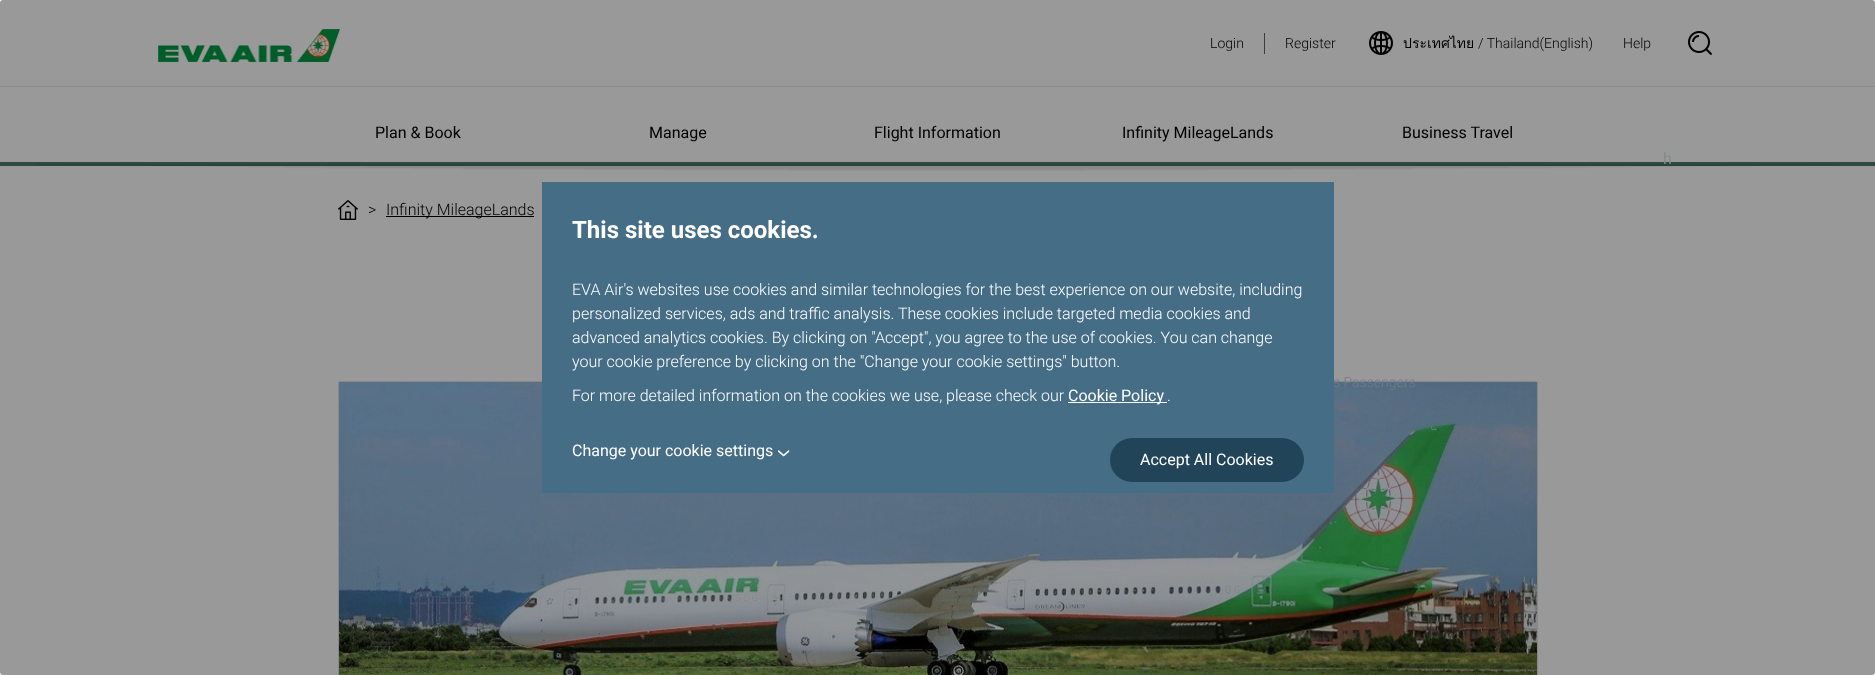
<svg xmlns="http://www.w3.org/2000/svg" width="1875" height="675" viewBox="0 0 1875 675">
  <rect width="100%" height="100%" fill="#fff"/>
  <path d="M0 162h1875v4H0z" fill="#4b7d6b"/>
  <image x="158" y="29" width="182" height="33" href="img/1.png"/>
  <path d="M1264 33h1v21H1264z" fill="#666"/>
  <image x="1369" y="31" width="24" height="24" href="img/2.png"/>
  <image x="1688" y="31" width="24" height="24" href="img/3.png"/>
  <path d="M0 86h1875v1H0z" fill="#e6e6e6"/>
  <image x="35" y="164" width="1805" height="7" href="img/4.png"/>
  <image x="338" y="200" width="20" height="20" href="img/5.png"/>
  <path d="M386 216h148v1H386z" fill="#000"/>
  <path d="M341 381C339 381 338 382 338 384V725C338 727 339 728 341 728H1535C1537 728 1538 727 1538 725V384C1538 382 1537 381 1535 381ZM339 382V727H1537V382Z" fill="#e3e3e3" fill-rule="evenodd"/>
  <image x="339" y="382" width="1198" height="293" href="img/7.png"/>
  <g font-family="Roboto" font-size="14" font-weight="300" fill="#000">
    <text x="1210" y="48">Login</text>
    <text x="1285" y="48">Register</text>
  </g>
  <text x="1403" y="48" font-family="Loma" font-size="14" fill="#000">ประเทศไทย</text>
  <g font-family="Roboto" font-size="14" font-weight="300" fill="#000">
    <text x="1478" y="48">/ Thailand(English)</text>
    <text x="1623" y="48">Help</text>
  </g>
  <text x="1663" y="164" font-family="Roboto" font-size="16" fill="#dee7e4">h</text>
  <g font-family="Roboto" font-size="16" fill="#000">
    <text x="375" y="138">Plan &amp; Book</text>
    <text x="649" y="138">Manage</text>
    <text x="874" y="138">Flight Information</text>
    <text x="1122" y="138">Infinity MileageLands</text>
    <text x="1402" y="138">Business Travel</text>
  </g>
  <text x="1333" y="387" font-family="Roboto" font-size="14" font-weight="300" fill="#b9d0e5">s Passengers</text>
  <g font-family="Roboto" font-size="16" font-weight="300" fill="#000">
    <text x="368" y="215">&gt;</text>
    <text x="386" y="215">Infinity MileageLands</text>
  </g>
  <rect width="1875" height="675" rx="3" fill="#00000066"/>
  <path d="M542 182h792v311H542z" fill="#466d86"/>
  <text x="572" y="238" font-family="Roboto" font-size="24" font-weight="bold" fill="#fff">This site uses cookies.</text>
  <g font-family="Roboto" font-size="16" font-weight="300" fill="#fff">
    <text x="572" y="295">EVA Air's websites use cookies and similar technologies for the best experience on our website, including</text>
    <text x="572" y="319">personalized services, ads and traffic analysis. These cookies include targeted media cookies and</text>
    <text x="572" y="343">advanced analytics cookies. By clicking on "Accept", you agree to the use of cookies. You can change</text>
    <text x="572" y="367">your cookie preference by clicking on the "Change your cookie settings" button.</text>
    <text x="572" y="401">For more detailed information on the cookies we use, please check our</text>
  </g>
  <path d="M1068 402h99v1H1068z" fill="#fff"/>
  <text x="1068" y="401" font-family="Roboto" font-size="16" fill="#fff">Cookie Policy</text>
  <text x="1167" y="401" font-family="Roboto" font-size="16" font-weight="300" fill="#fff">.</text>
  <text x="572" y="456" font-family="Roboto" font-size="16" fill="#fff">Change your cookie settings</text>
  <image x="778" y="450" width="12" height="7" href="img/6.png"/>
  <rect x="1110" y="438" width="194" height="44" rx="22" fill="#224459"/>
  <text x="1140" y="465" font-family="Roboto" font-size="16" fill="#fff">Accept All Cookies</text>
</svg>
